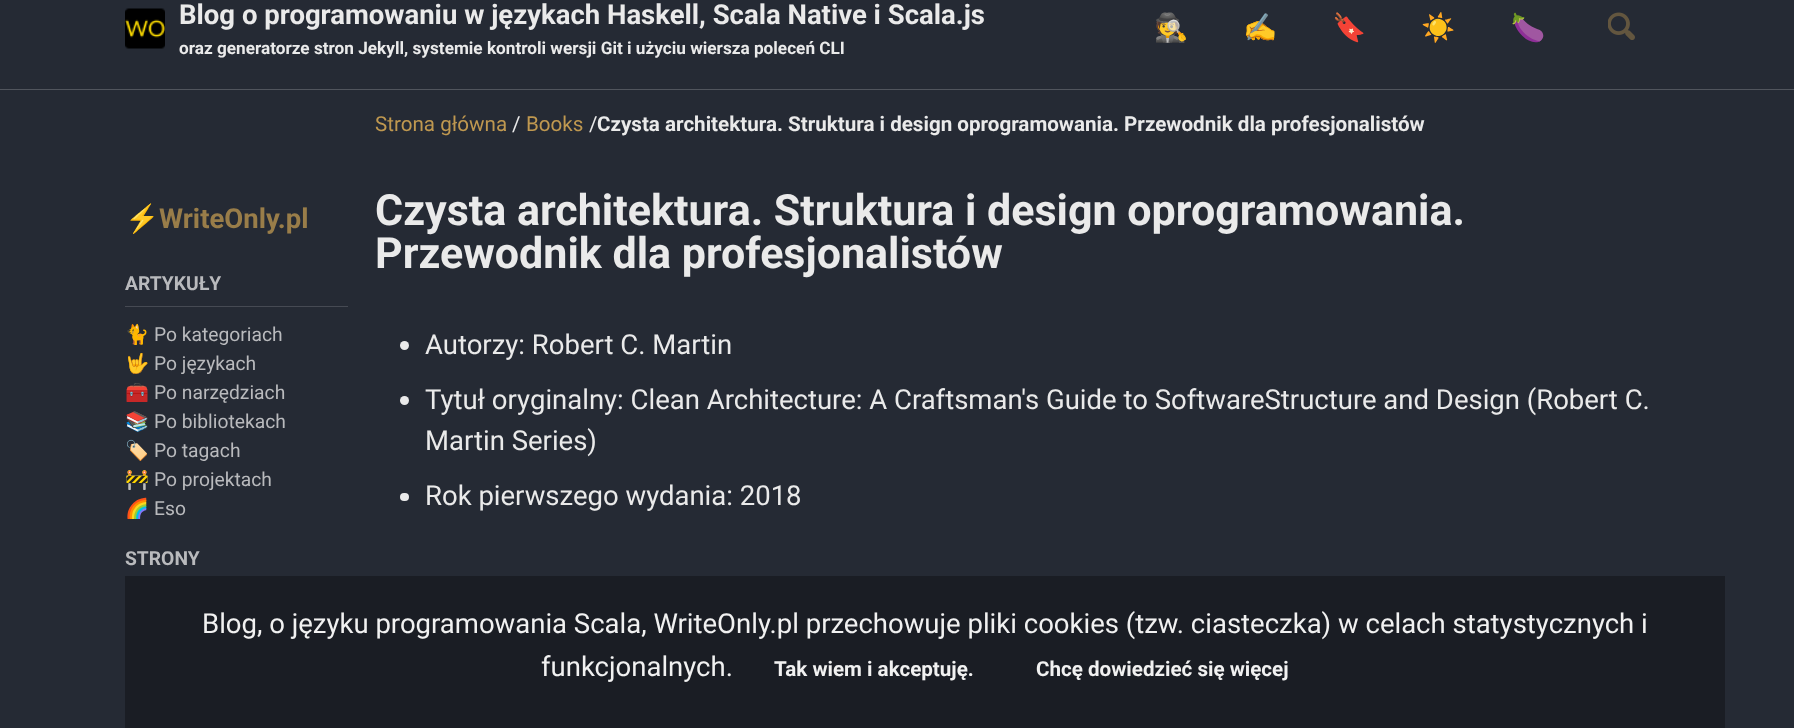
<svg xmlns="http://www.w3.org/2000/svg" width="1794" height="728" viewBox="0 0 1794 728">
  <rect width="100%" height="100%" fill="#252a34"/>
  <path d="M0 89h1794v1H0z" fill="#51555d"/>
  <image x="125" y="8" width="40" height="41" href="img/1.png"/>
  <image x="1608" y="12" width="27" height="28" href="img/2.png"/>
  <path d="M125 306h223v1H125z" fill="#464a53"/>
  <circle cx="404.5" cy="345.5" r="4.5" fill="#eaeaea"/>
  <circle cx="404.5" cy="400.5" r="4.5" fill="#eaeaea"/>
  <rect x="400" y="493" width="9" height="8" rx="4" fill="#eaeaea"/>
  <path d="M125 576h1600v152H125z" fill="#1a1d24"/>
  <text x="179" y="24" font-family="Roboto" font-size="27.5" font-weight="bold" fill="#eaeaea">Blog o programowaniu w językach Haskell, Scala Native i Scala.js</text>
  <text x="179" y="54" font-family="Roboto" font-size="17.2" font-weight="bold" fill="#eaeaea">oraz generatorze stron Jekyll, systemie kontroli wersji Git i użyciu wiersza poleceń CLI</text>
  <g font-family="Noto Color Emoji" font-size="27.5" fill="#eaeaea">
    <text x="1154" y="37">🕵️</text>
    <text x="1243" y="37">✍️</text>
    <text x="1332" y="37">🔖</text>
    <text x="1421" y="37">☀️</text>
    <text x="1511" y="37">🍆</text>
  </g>
  <text x="375" y="131" font-family="Roboto" font-size="20.6" fill="#bf9850">Strona główna</text>
  <text x="512" y="131" font-family="Roboto" font-size="20.6" fill="#eaeaea">/</text>
  <text x="526" y="131" font-family="Roboto" font-size="20.6" fill="#bf9850">Books</text>
  <text x="589" y="131" font-family="Roboto" font-size="20.6" fill="#eaeaea">/</text>
  <text x="597" y="131" font-family="Roboto" font-size="20.6" font-weight="bold" fill="#eaeaea">Czysta architektura. Struktura i design oprogramowania. Przewodnik dla profesjonalistów</text>
  <text x="125" y="228" font-family="Noto Color Emoji" font-size="27.5" font-weight="bold" fill="#997d49">⚡</text>
  <text x="159" y="228" font-family="Roboto" font-size="27.5" font-weight="bold" fill="#997d49">WriteOnly.pl</text>
  <text x="125" y="290" font-family="Roboto" font-size="19.25" font-weight="bold" fill="#b9babd">ARTYKUŁY</text>
  <text x="125" y="341" font-family="Noto Color Emoji" font-size="19.25" fill="#b9babd">🐈</text>
  <text x="154" y="341" font-family="Roboto" font-size="19.25" fill="#b9babd">Po kategoriach</text>
  <text x="125" y="370" font-family="Noto Color Emoji" font-size="19.25" fill="#b9babd">🤟</text>
  <text x="154" y="370" font-family="Roboto" font-size="19.25" fill="#b9babd">Po językach</text>
  <text x="125" y="399" font-family="Noto Color Emoji" font-size="19.25" fill="#b9babd">🧰</text>
  <text x="154" y="399" font-family="Roboto" font-size="19.25" fill="#b9babd">Po narzędziach</text>
  <text x="125" y="428" font-family="Noto Color Emoji" font-size="19.25" fill="#b9babd">📚</text>
  <text x="154" y="428" font-family="Roboto" font-size="19.25" fill="#b9babd">Po bibliotekach</text>
  <text x="125" y="457" font-family="Noto Color Emoji" font-size="19.25" fill="#b9babd">🏷️</text>
  <text x="154" y="457" font-family="Roboto" font-size="19.25" fill="#b9babd">Po tagach</text>
  <text x="125" y="486" font-family="Noto Color Emoji" font-size="19.25" fill="#b9babd">🚧</text>
  <text x="154" y="486" font-family="Roboto" font-size="19.25" fill="#b9babd">Po projektach</text>
  <text x="125" y="515" font-family="Noto Color Emoji" font-size="19.25" fill="#b9babd">🌈</text>
  <text x="154" y="515" font-family="Roboto" font-size="19.25" fill="#b9babd">Eso</text>
  <text x="125" y="565" font-family="Roboto" font-size="19.25" font-weight="bold" fill="#b9babd">STRONY</text>
  <g font-family="Roboto" font-size="43" font-weight="bold" fill="#eaeaea">
    <text x="375" y="225">Czysta architektura. Struktura i design oprogramowania.</text>
    <text x="375" y="268">Przewodnik dla profesjonalistów</text>
  </g>
  <g font-family="Roboto" font-size="27.5" fill="#eaeaea">
    <text x="425" y="354">Autorzy: Robert C. Martin</text>
    <text x="425" y="409">Tytuł oryginalny: Clean Architecture: A Craftsman's Guide to SoftwareStructure and Design (Robert C.</text>
    <text x="425" y="450">Martin Series)</text>
    <text x="425" y="505">Rok pierwszego wydania: 2018</text>
  </g>
  <g font-family="Roboto" font-size="27.5" fill="#f1f1f1">
    <text x="202" y="633">Blog, o języku programowania Scala, WriteOnly.pl przechowuje pliki cookies (tzw. ciasteczka) w celach statystycznych i</text>
    <text x="541" y="676">funkcjonalnych.</text>
  </g>
  <g font-family="Roboto" font-size="20.6" font-weight="bold" fill="#f1f1f1">
    <text x="774" y="676">Tak wiem i akceptuję.</text>
    <text x="1036" y="676">Chcę dowiedzieć się więcej</text>
  </g>
</svg>
